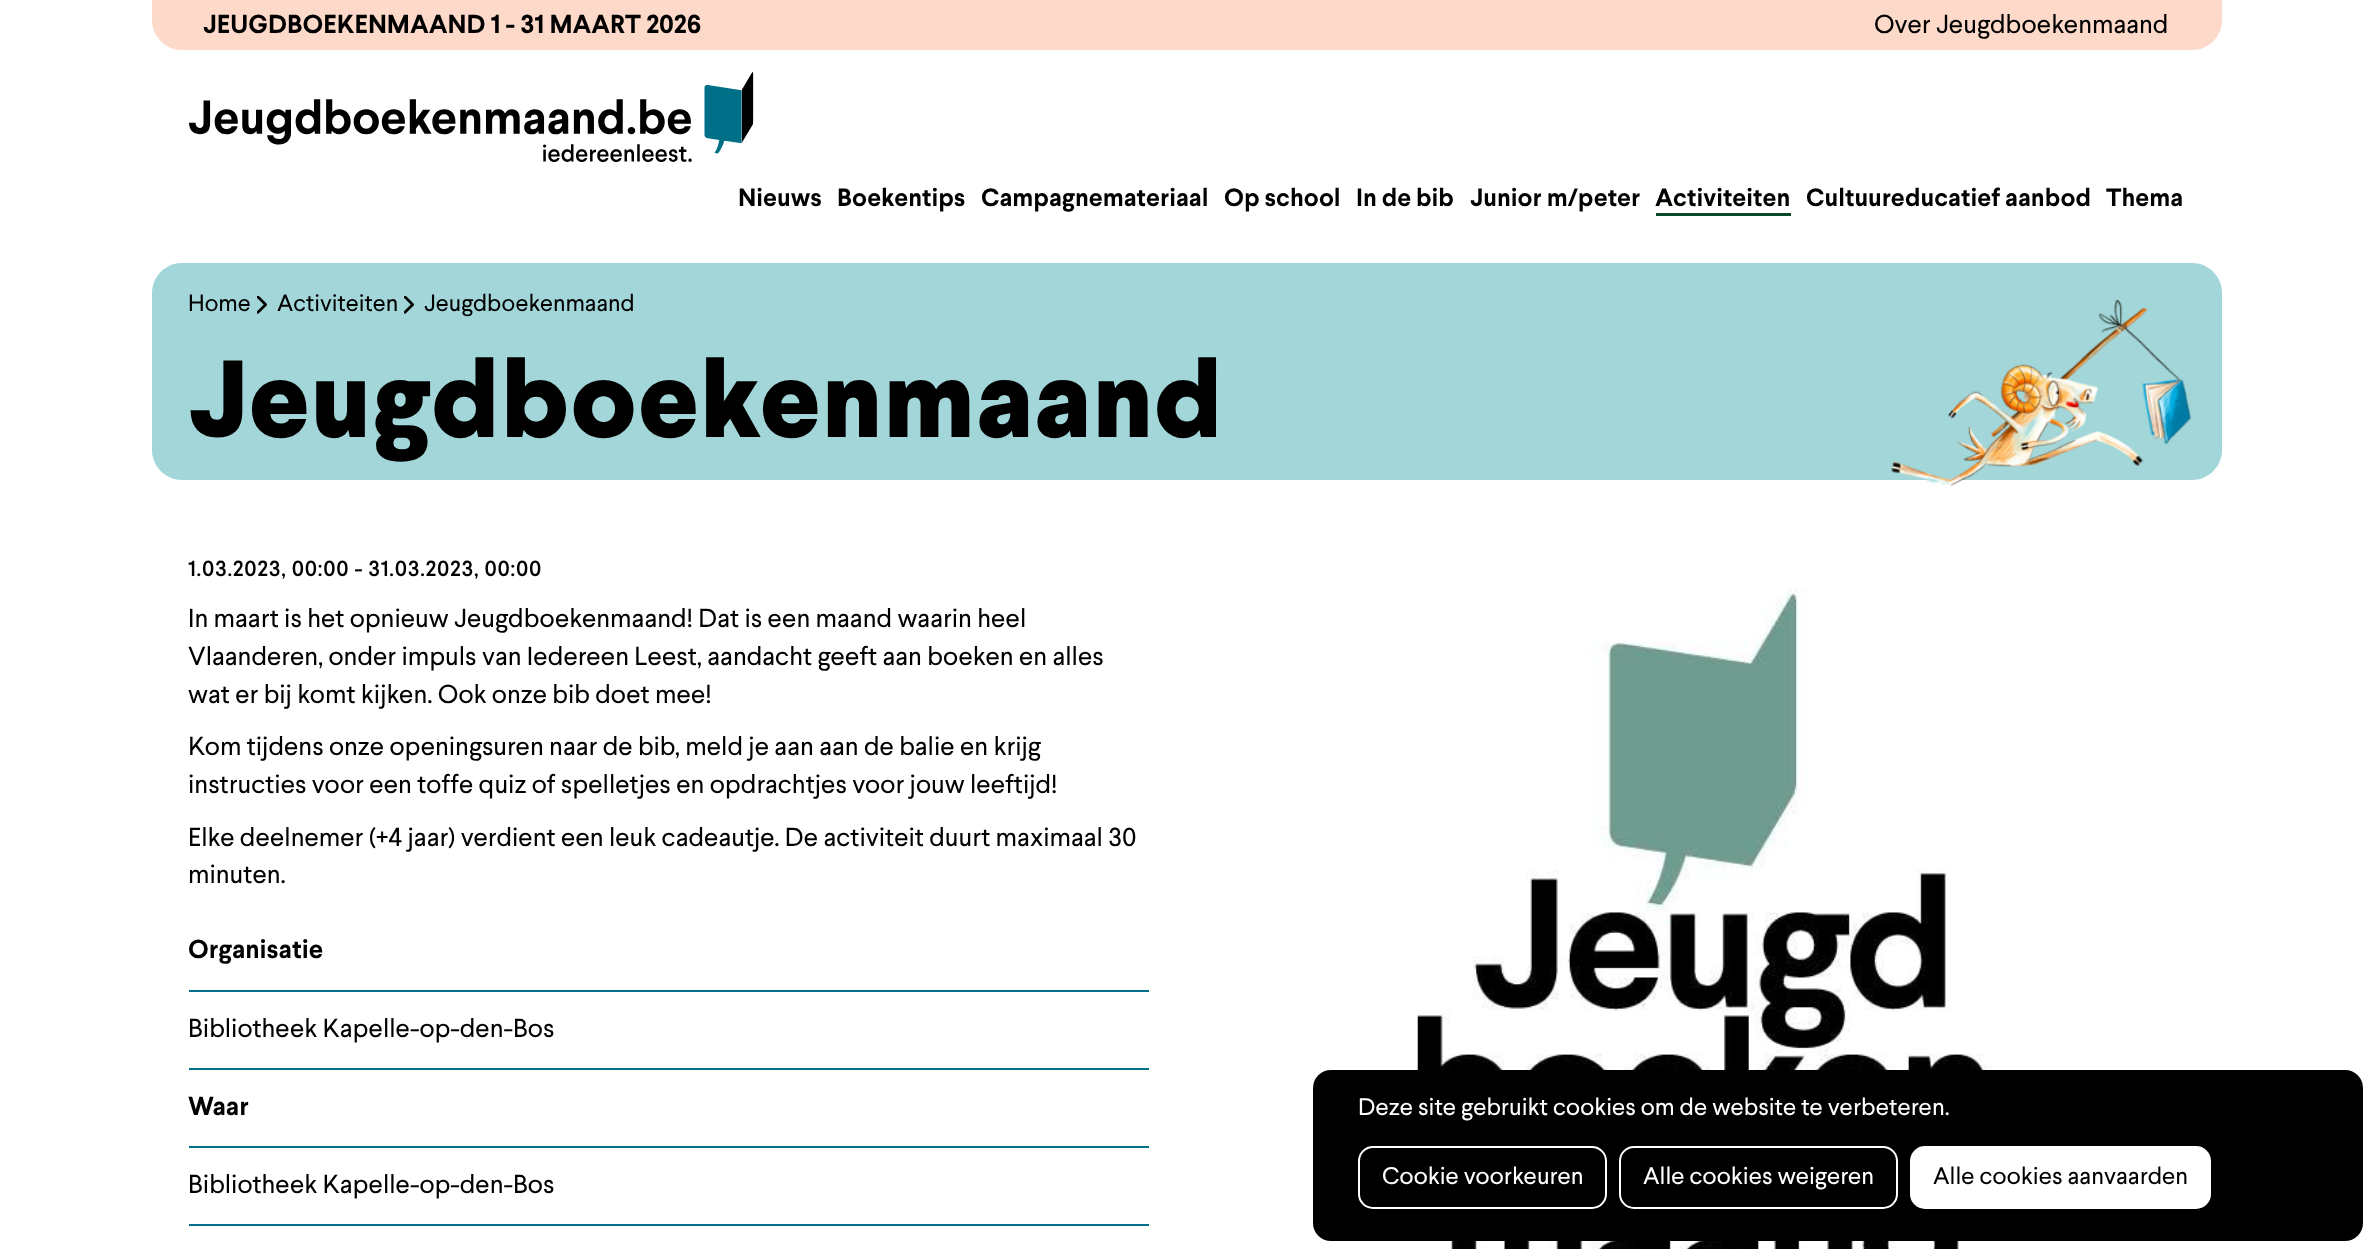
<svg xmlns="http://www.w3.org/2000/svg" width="2371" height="1249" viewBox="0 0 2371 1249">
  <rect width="100%" height="100%" fill="#fff"/>
  <path d="M152 0H2222V20C2222 36.5 2208.5 50 2192 50H182C165.5 50 152 36.5 152 20Z" fill="#fcd9c9"/>
  <image x="189" y="72" width="565" height="90" href="img/1.png"/>
  <path d="M1656 213h135v3H1656z" fill="#0a4928"/>
  <path d="M182 263H2192C2208.5 263 2222 276.5 2222 293V338H152V293C152 276.5 165.5 263 182 263Z" fill="#a2d6d9"/>
  <image x="257" y="296" width="10" height="18" href="img/2.png"/>
  <image x="404" y="296" width="10" height="18" href="img/2.png"/>
  <path d="M152 338H2222V450C2222 466.5 2208.5 480 2192 480H182C165.5 480 152 466.5 152 450Z" fill="#a2d6d9"/>
  <image x="1891" y="300" width="301" height="186" href="img/3.png"/>
  <path d="M189 1068h960v2H189z" fill="#006f88"/>
  <path d="M189 990h960v2H189z" fill="#006f88"/>
  <path d="M189 1224h960v2H189z" fill="#006f88"/>
  <path d="M189 1146h960v2H189z" fill="#006f88"/>
  <image x="1417" y="588" width="576" height="661" href="img/4.png"/>
  <rect x="1313" y="1070" width="1050" height="171" rx="18" fill="#000"/>
  <rect x="1359" y="1147" width="247" height="61" rx="14" fill="none" stroke="#fff" stroke-width="2"/>
  <rect x="1620" y="1147" width="277" height="61" rx="14" fill="none" stroke="#fff" stroke-width="2"/>
  <rect x="1910" y="1146" width="301" height="63" rx="15" fill="#fff"/>
  <text x="203" y="33" font-family="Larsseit" font-size="25.95" font-weight="bold" fill="#000">JEUGDBOEKENMAAND 1 - 31 MAART 2026</text>
  <text x="1874" y="33" font-family="Larsseit" font-size="25.95" fill="#000">Over Jeugdboekenmaand</text>
  <g font-family="Larsseit" font-size="25" font-weight="bold" fill="#000">
    <text x="738" y="206">Nieuws</text>
    <text x="837" y="206">Boekentips</text>
    <text x="981" y="206">Campagnemateriaal</text>
    <text x="1224" y="206">Op school</text>
    <text x="1356" y="206">In de bib</text>
    <text x="1470" y="206">Junior m/peter</text>
    <text x="1655" y="206">Activiteiten</text>
    <text x="1806" y="206">Cultuureducatief aanbod</text>
    <text x="2106" y="206">Thema</text>
  </g>
  <g font-family="Larsseit" font-size="23.5" fill="#000">
    <text x="188" y="311">Home</text>
    <text x="277" y="311">Activiteiten</text>
    <text x="424" y="311">Jeugdboekenmaand</text>
  </g>
  <text x="188" y="437" font-family="Larsseit" font-size="109.25" font-weight="800" fill="#000">Jeugdboekenmaand</text>
  <text x="188" y="576" font-family="Larsseit" font-size="21.8" font-weight="500" letter-spacing="0.75" fill="#000">1.03.2023, 00:00 - 31.03.2023, 00:00</text>
  <g font-family="Larsseit" font-size="25.95" fill="#000">
    <text x="188" y="627">In maart is het opnieuw Jeugdboekenmaand! Dat is een maand waarin heel</text>
    <text x="188" y="665">Vlaanderen, onder impuls van Iedereen Leest, aandacht geeft aan boeken en alles</text>
    <text x="188" y="703">wat er bij komt kijken. Ook onze bib doet mee!</text>
    <text x="188" y="755">Kom tijdens onze openingsuren naar de bib, meld je aan aan de balie en krijg</text>
    <text x="188" y="793">instructies voor een toffe quiz of spelletjes en opdrachtjes voor jouw leeftijd!</text>
    <text x="188" y="846">Elke deelnemer (+4 jaar) verdient een leuk cadeautje. De activiteit duurt maximaal 30</text>
    <text x="188" y="883">minuten.</text>
  </g>
  <text x="188" y="958" font-family="Larsseit" font-size="25.95" font-weight="bold" fill="#000">Organisatie</text>
  <text x="188" y="1037" font-family="Larsseit" font-size="25.95" fill="#000">Bibliotheek Kapelle-op-den-Bos</text>
  <text x="188" y="1115" font-family="Larsseit" font-size="25.95" font-weight="bold" fill="#000">Waar</text>
  <text x="188" y="1193" font-family="Larsseit" font-size="25.95" fill="#000">Bibliotheek Kapelle-op-den-Bos</text>
  <g font-family="Larsseit" font-size="24" fill="#fff">
    <text x="1358" y="1115">Deze site gebruikt cookies om de website te verbeteren.</text>
    <text x="1382" y="1184">Cookie voorkeuren</text>
    <text x="1643" y="1184">Alle cookies weigeren</text>
  </g>
  <text x="1933" y="1184" font-family="Larsseit" font-size="24" fill="#000">Alle cookies aanvaarden</text>
</svg>
